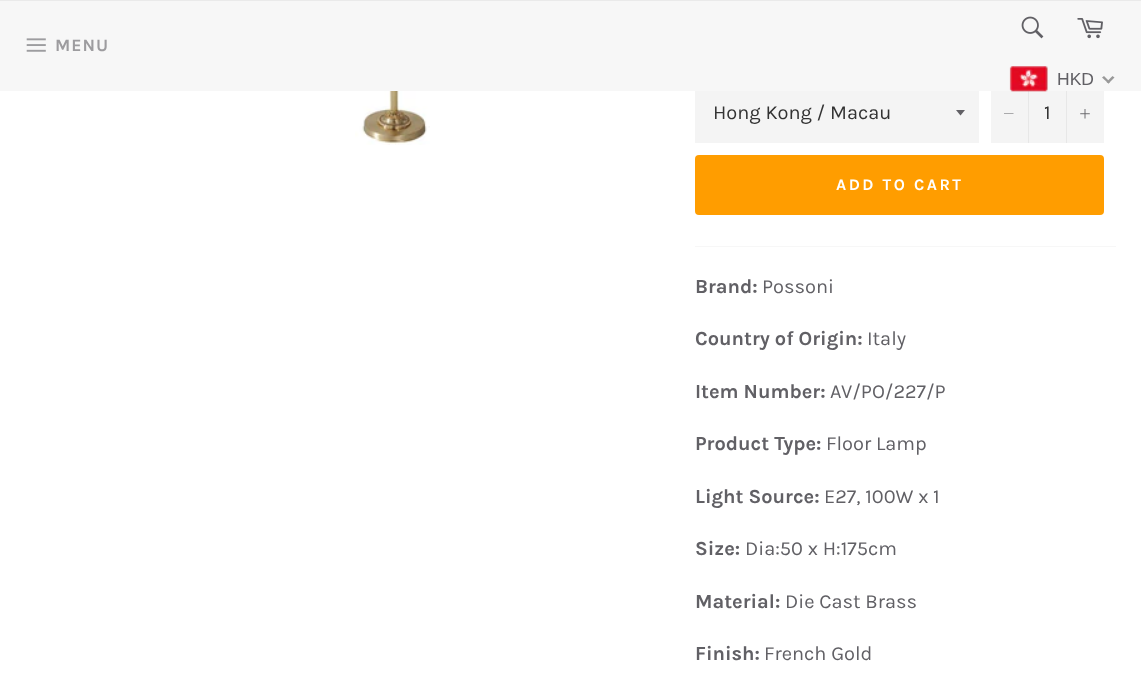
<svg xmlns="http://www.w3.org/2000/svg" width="1141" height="699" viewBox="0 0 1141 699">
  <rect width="100%" height="100%" fill="#fff"/>
  <path d="M991 91h113v52H991z" fill="#f4f4f4"/>
  <path d="M1028 83h1v60H1028z" fill="#e7e7e7"/>
  <path d="M1066 83h1v60H1066z" fill="#e7e7e7"/>
  <path d="M0 1h1141v90H0z" fill="#f7f7f7"/>
  <path d="M0 0h1141v1H0z" fill="#eaeaea"/>
  <image x="26" y="38" width="20" height="14" href="img/1.png"/>
  <image x="1021" y="16" width="23" height="23" href="img/2.png"/>
  <image x="1077" y="18" width="26" height="21" href="img/3.png"/>
  <image x="1009" y="66" width="39" height="26" href="img/4.png"/>
  <path d="M1112.5 76L1114.5 77.5L1108.5 83.5L1106.5 82Z" fill="#999"/>
  <path d="M1104 76L1110 82L1108.5 83.5L1102 77.5Z" fill="#999"/>
  <image x="355" y="91" width="75" height="54" href="img/5.png"/>
  <path d="M695 91h284v52H695z" fill="#f4f4f4"/>
  <path d="M956 110L960.5 115.5L965 110Z" fill="#616065"/>
  <path d="M1013.5 113.5V114H1004V113.5Z" fill="#616065" fill-rule="evenodd"/>
  <image x="1080" y="109" width="10" height="10" href="img/6.png"/>
  <rect x="695" y="155" width="409" height="60" rx="4" fill="#ff9d00"/>
  <path d="M695 246h421v1H695z" fill="#f7f7f7"/>
  <text x="55" y="51" font-family="Karla" font-size="17.5" font-weight="bold" letter-spacing="1" fill="#9d9c9f">MENU</text>
  <text x="1057" y="85" font-family="Liberation Sans" font-size="17.5" fill="#616065">HKD</text>
  <g font-family="Karla" font-size="20" fill="#333">
    <text x="713" y="119">Hong Kong / Macau</text>
    <text x="1044" y="119">1</text>
  </g>
  <text x="836" y="190" font-family="Karla" font-size="16.25" font-weight="bold" letter-spacing="2.5" fill="#fff">ADD TO CART</text>
  <text x="695" y="293" font-family="Karla" font-size="20" font-weight="bold" fill="#616065">Brand:</text>
  <text x="762" y="293" font-family="Karla" font-size="20" fill="#616065">Possoni</text>
  <text x="695" y="345" font-family="Karla" font-size="20" font-weight="bold" fill="#616065">Country of Origin:</text>
  <text x="867" y="345" font-family="Karla" font-size="20" fill="#616065">Italy</text>
  <text x="695" y="398" font-family="Karla" font-size="20" font-weight="bold" fill="#616065">Item Number:</text>
  <text x="830" y="398" font-family="Karla" font-size="20" fill="#616065">AV/PO/227/P</text>
  <text x="695" y="450" font-family="Karla" font-size="20" font-weight="bold" fill="#616065">Product Type:</text>
  <text x="826" y="450" font-family="Karla" font-size="20" fill="#616065">Floor Lamp</text>
  <text x="695" y="503" font-family="Karla" font-size="20" font-weight="bold" fill="#616065">Light Source:</text>
  <text x="824" y="503" font-family="Karla" font-size="20" fill="#616065">E27, 100W x 1</text>
  <text x="695" y="555" font-family="Karla" font-size="20" font-weight="bold" fill="#616065">Size:</text>
  <text x="745" y="555" font-family="Karla" font-size="20" fill="#616065">Dia:50 x H:175cm</text>
  <text x="695" y="608" font-family="Karla" font-size="20" font-weight="bold" fill="#616065">Material:</text>
  <text x="785" y="608" font-family="Karla" font-size="20" fill="#616065">Die Cast Brass</text>
  <text x="695" y="660" font-family="Karla" font-size="20" font-weight="bold" fill="#616065">Finish:</text>
  <text x="764" y="660" font-family="Karla" font-size="20" fill="#616065">French Gold</text>
</svg>
